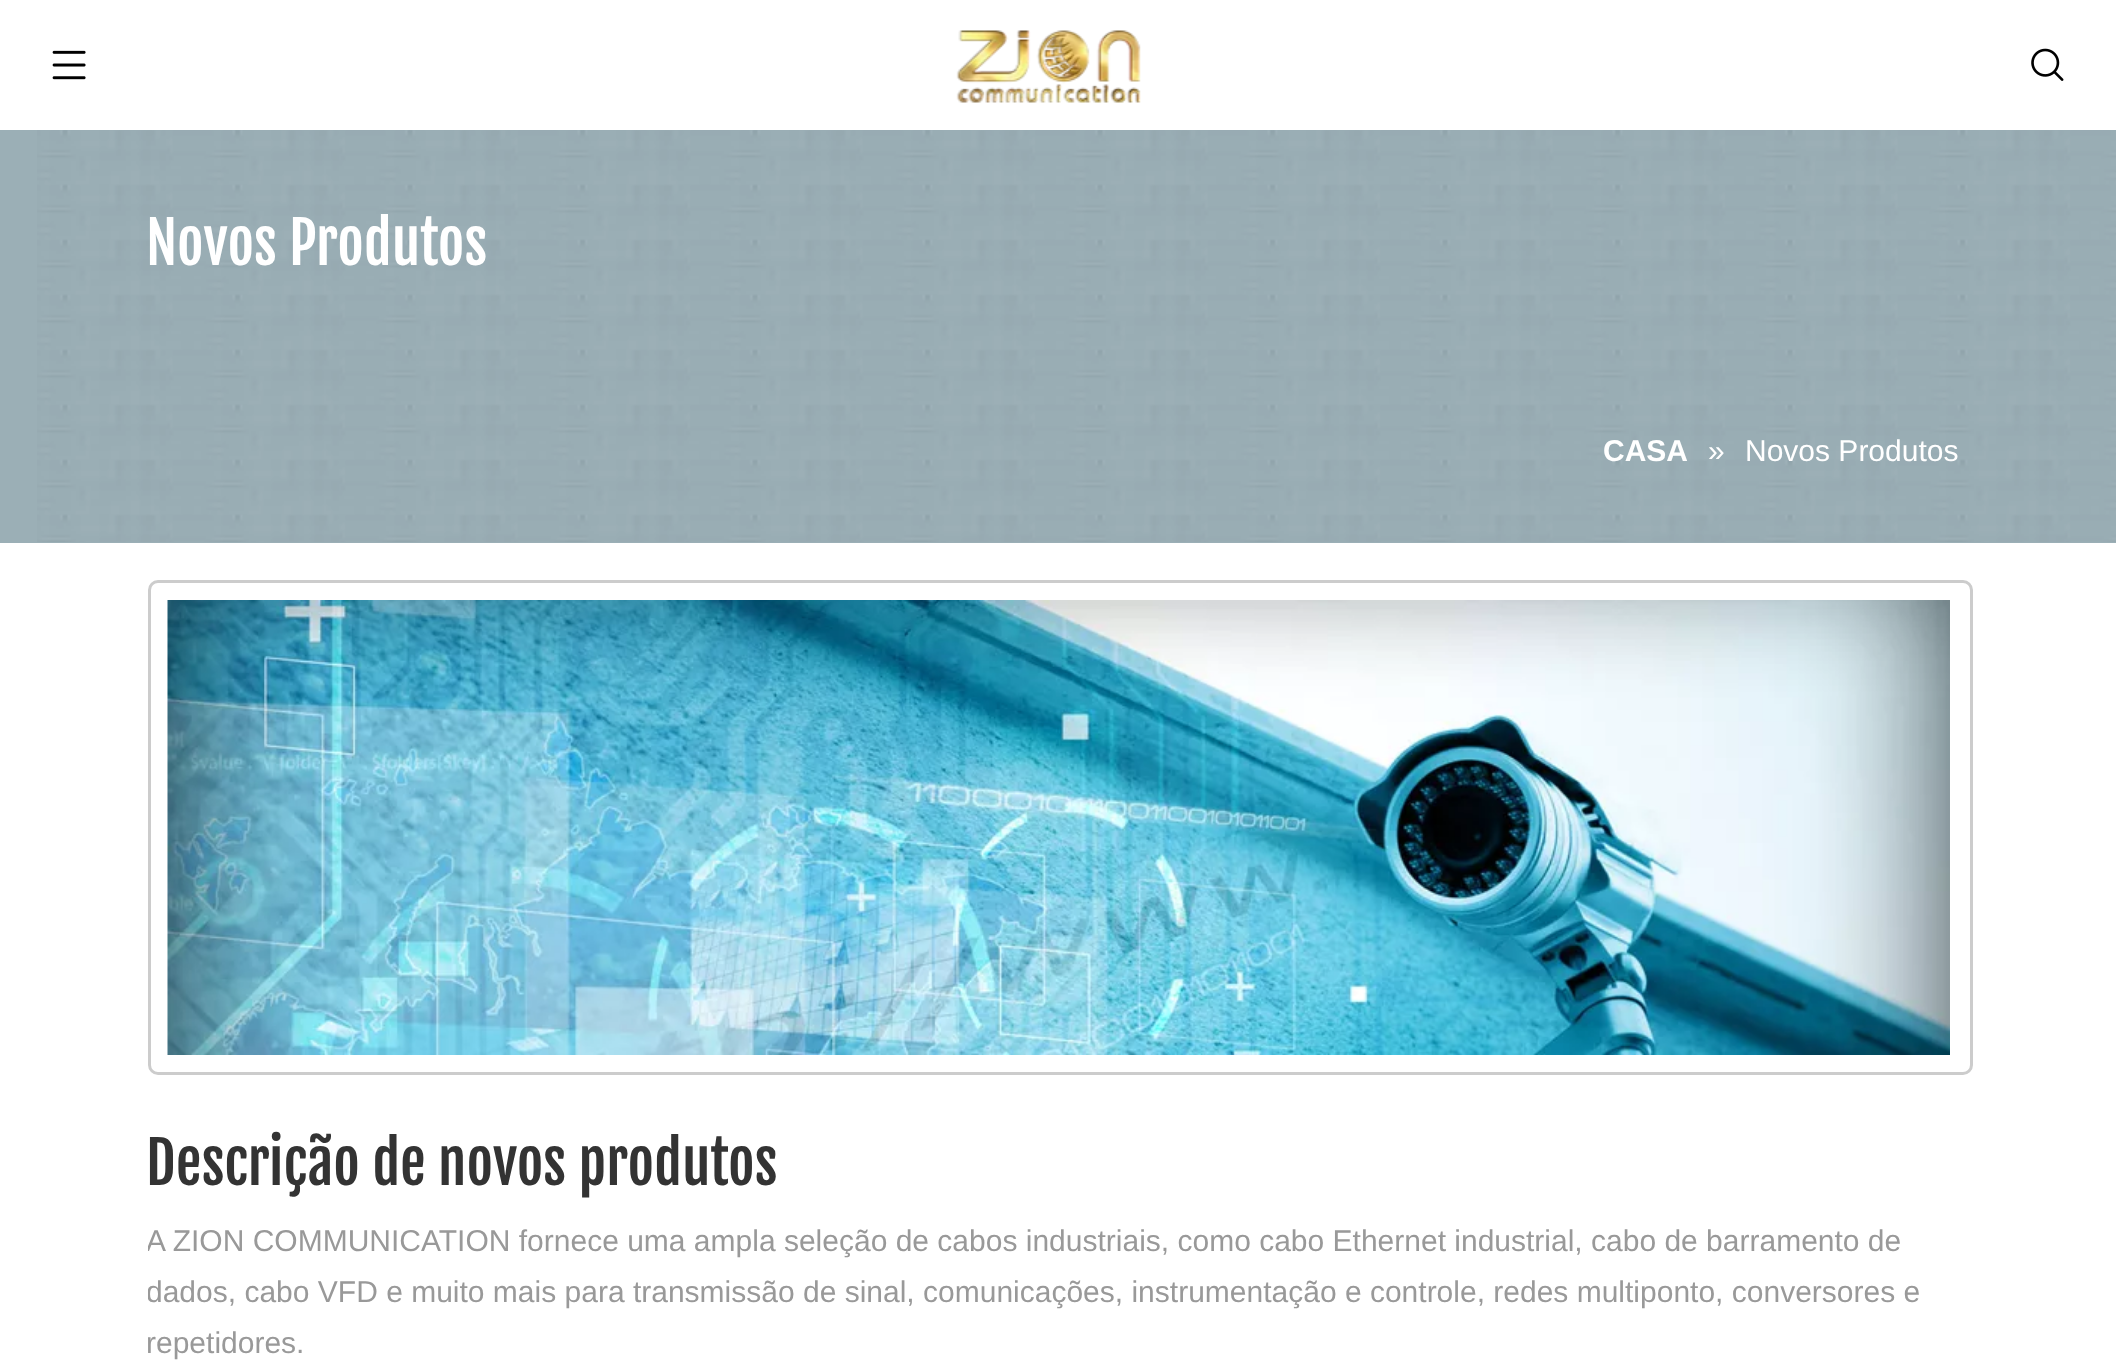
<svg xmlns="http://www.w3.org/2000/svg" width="2116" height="1366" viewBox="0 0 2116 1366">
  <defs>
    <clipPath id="clip1"><path d="M148 1215h1825v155H148z"/></clipPath>
  </defs>
  <rect width="100%" height="100%" fill="#fff"/>
  <image x="52" y="50" width="34" height="30" href="img/1.png"/>
  <image x="956" y="30" width="185" height="73" href="img/2.png"/>
  <image x="2031" y="48" width="33" height="33" href="img/3.png"/>
  <path d="M0 130h2116v413H0z" fill="#9bafb6"/>
  <image x="37" y="130" width="2079" height="412" href="img/4.png"/>
  <rect x="149.5" y="581.5" width="1822" height="492" rx="8.5" fill="none" stroke="#ccc" stroke-width="3"/>
  <image x="167" y="600" width="1783" height="455" href="img/5.png"/>
  <text x="146" y="265" font-family="Fjalla One" font-size="57.5" fill="#fff">Novos Produtos</text>
  <text x="1603" y="461" font-family="Liberation Sans" font-size="30" font-weight="bold" fill="#fff">CASA</text>
  <g font-family="Liberation Sans" font-size="30" fill="#fff">
    <text x="1708" y="461">»</text>
    <text x="1745" y="461">Novos Produtos</text>
  </g>
  <text x="146" y="1185" font-family="Fjalla One" font-size="57.5" fill="#333">Descrição de novos produtos</text>
  <g clip-path="url(#clip1)">
    <g font-family="Liberation Sans" font-size="30" fill="#999">
      <text x="146" y="1251">A ZION COMMUNICATION fornece uma ampla seleção de cabos industriais, como cabo Ethernet industrial, cabo de barramento de</text>
      <text x="146" y="1302">dados, cabo VFD e muito mais para transmissão de sinal, comunicações, instrumentação e controle, redes multiponto, conversores e</text>
    </g>
  </g>
  <text x="146" y="1353" font-family="Liberation Sans" font-size="30" fill="#999">repetidores.</text>
</svg>
